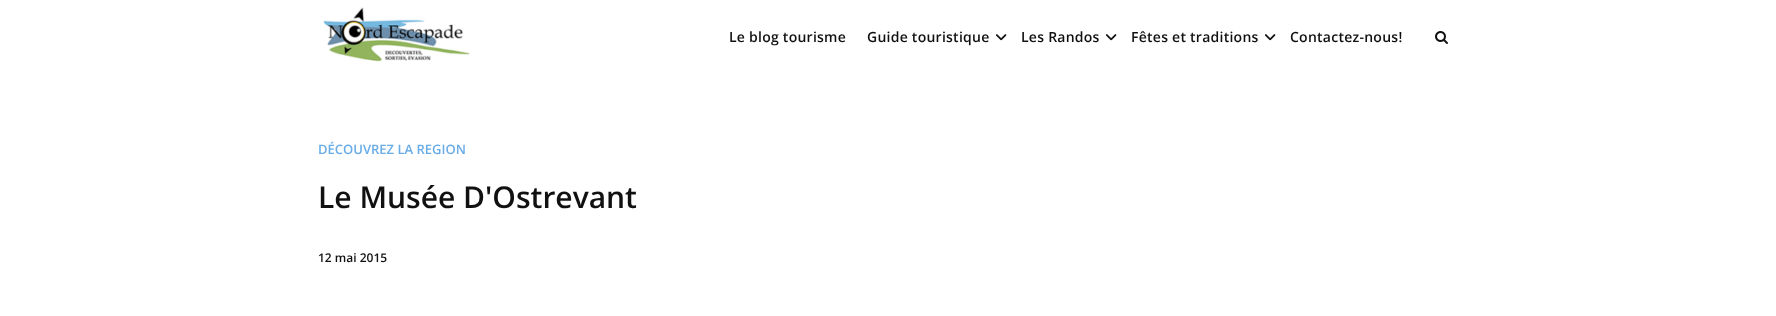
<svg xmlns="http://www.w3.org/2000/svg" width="1776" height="316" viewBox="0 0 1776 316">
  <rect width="100%" height="100%" fill="#fff"/>
  <image x="323" y="7" width="147" height="55" href="img/1.png"/>
  <image x="996" y="34" width="11" height="7" href="img/2.png"/>
  <image x="1106" y="34" width="11" height="7" href="img/2.png"/>
  <image x="1265" y="34" width="11" height="7" href="img/2.png"/>
  <image x="1435" y="31" width="13" height="13" href="img/3.png"/>
  <g font-family="Open Sans" font-size="14" font-weight="600" letter-spacing="0.25" fill="#111">
    <text x="729" y="42">Le blog tourisme</text>
    <text x="867" y="42">Guide touristique</text>
    <text x="1021" y="42">Les Randos</text>
    <text x="1131" y="42">Fêtes et traditions</text>
    <text x="1290" y="42">Contactez-nous!</text>
  </g>
  <text x="318" y="154" font-family="Open Sans" font-size="13" font-weight="600" fill="#68ace8">DÉCOUVREZ LA REGION</text>
  <text x="318" y="208" font-family="Open Sans" font-size="30" font-weight="600" fill="#111">Le Musée D'Ostrevant</text>
  <text x="318" y="262" font-family="Open Sans" font-size="12" font-weight="600" fill="#111">12 mai 2015</text>
</svg>
